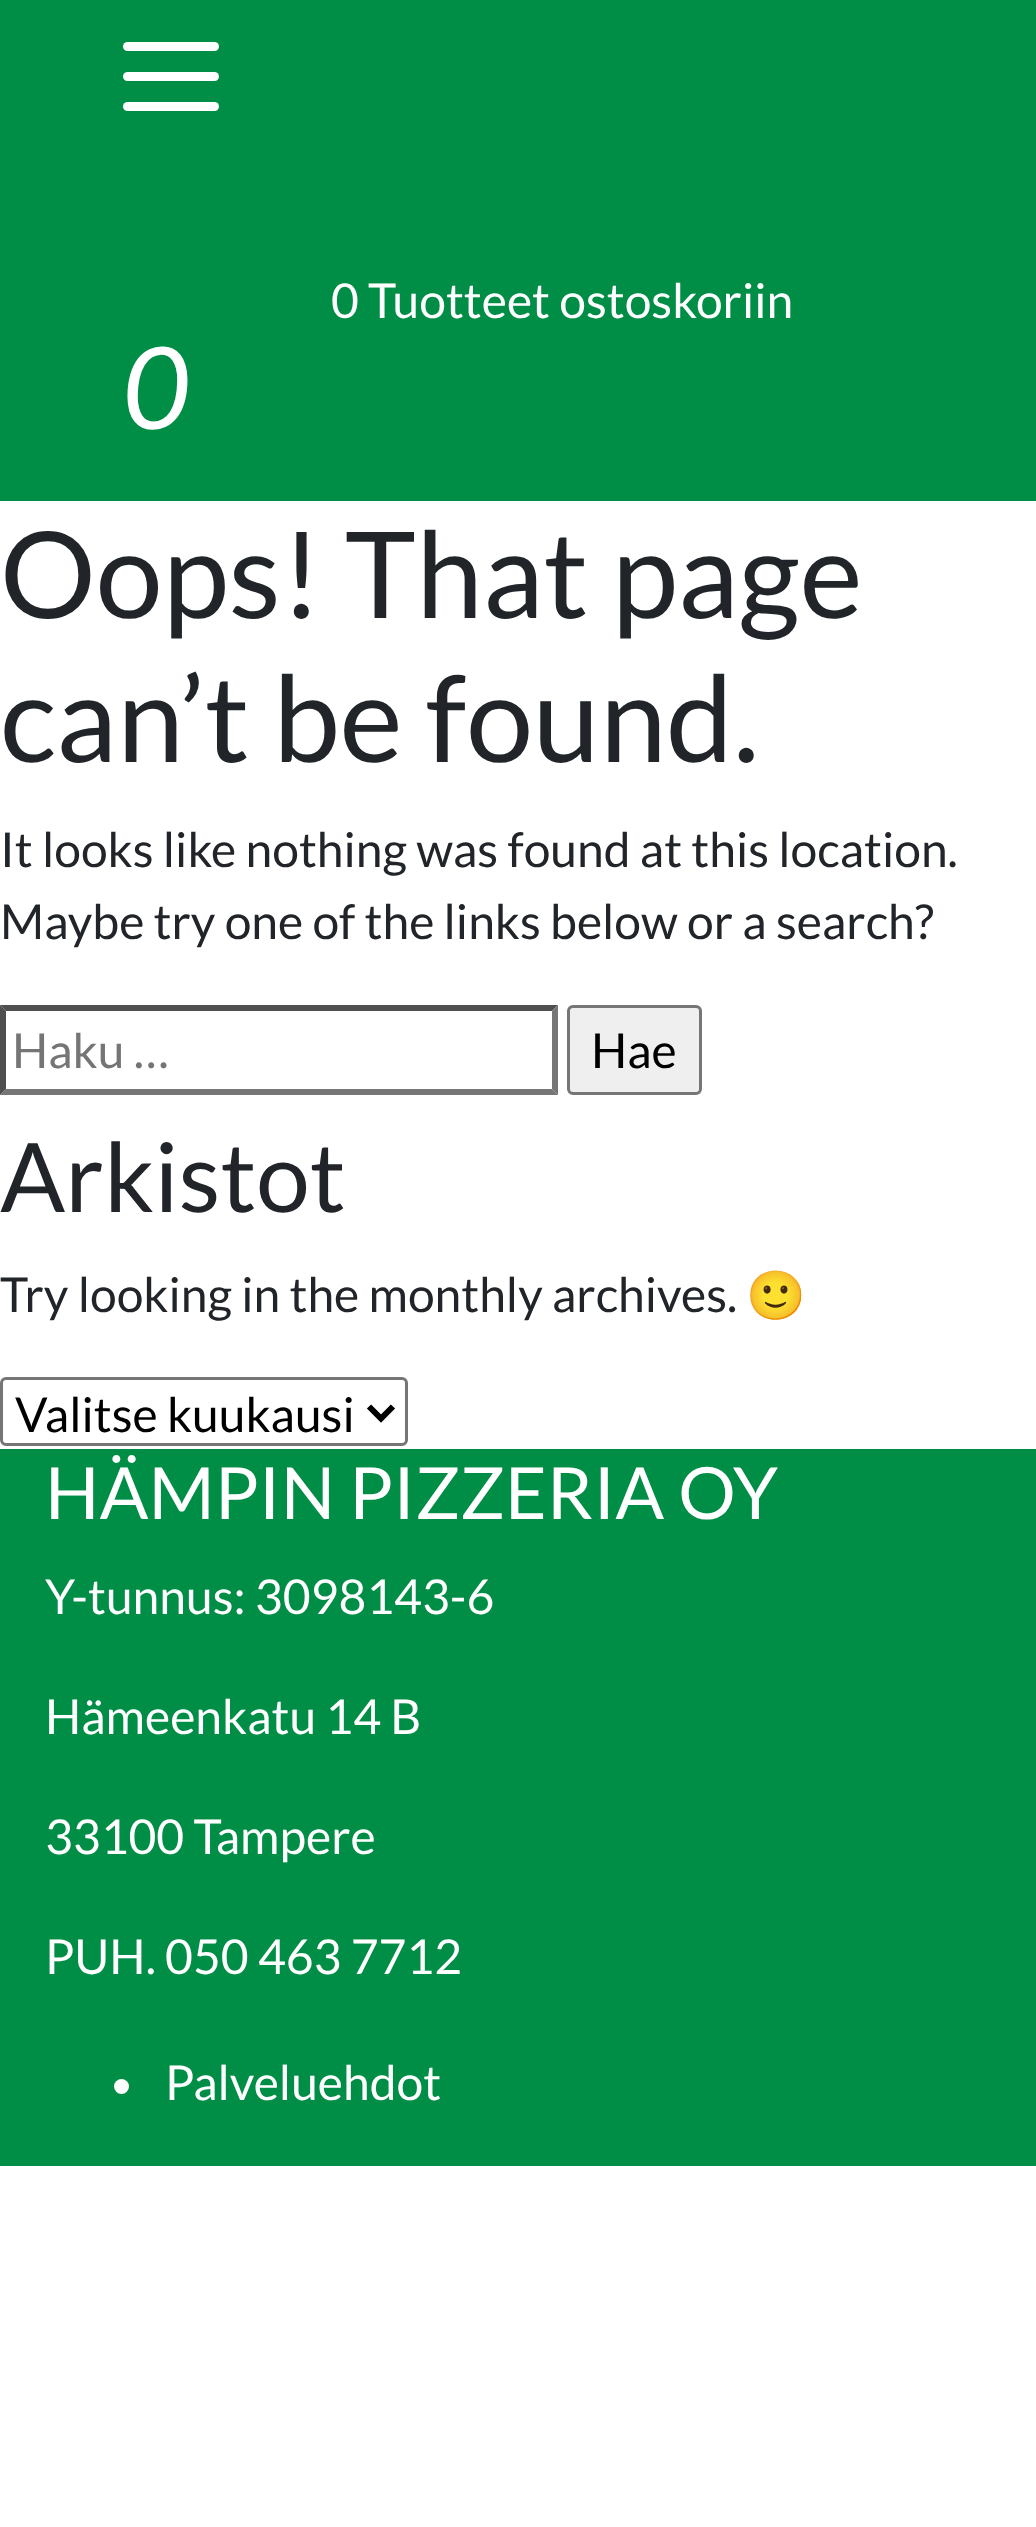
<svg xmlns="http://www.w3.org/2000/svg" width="1036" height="2527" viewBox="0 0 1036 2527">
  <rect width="100%" height="100%" fill="#fff"/>
  <path d="M0 0h1036v501H0z" fill="#008d46"/>
  <rect x="123" y="42" width="96" height="9" rx="4.5" fill="#fff"/>
  <rect x="123" y="72" width="96" height="9" rx="4.5" fill="#fff"/>
  <rect x="123" y="102" width="96" height="9" rx="4.5" fill="#fff"/>
  <path d="M0 1005H558L552 1011H6Z" fill="#4f4f4f"/>
  <path d="M558 1005V1095L552 1089V1011Z" fill="#767676"/>
  <path d="M558 1095H0L6 1089H552Z" fill="#767676"/>
  <path d="M0 1095V1005L6 1011V1089Z" fill="#4f4f4f"/>
  <rect x="568.5" y="1006.5" width="132" height="87" rx="4.5" fill="#efefef" stroke="#767676" stroke-width="3"/>
  <rect x="1.5" y="1378.5" width="405" height="66" rx="4.5" fill="none" stroke="#767676" stroke-width="3"/>
  <path d="M369 1406.5L381 1418.5L393 1406.5" fill="none" stroke="#000" stroke-width="6"/>
  <path d="M0 1449h1036v717H0z" fill="#008d46"/>
  <circle cx="121.5" cy="2086.5" r="7.5" fill="#fff"/>
  <text x="331" y="318" font-family="Lato" font-size="48" fill="#fff">0 Tuotteet ostoskoriin</text>
  <text x="123" y="429" font-family="Lato" font-size="114" font-style="italic" fill="#fff">0</text>
  <g font-family="Lato" font-size="120" fill="#212529">
    <text x="0" y="618">Oops! That page</text>
    <text x="0" y="762">can’t be found.</text>
  </g>
  <g font-family="Lato" font-size="48" fill="#212529">
    <text x="0" y="867">It looks like nothing was found at this location.</text>
    <text x="0" y="939">Maybe try one of the links below or a search?</text>
  </g>
  <text x="12" y="1068" font-family="Lato" font-size="48" fill="#757575">Haku …</text>
  <text x="591" y="1068" font-family="Lato" font-size="48" fill="#000">Hae</text>
  <text x="0" y="1212" font-family="Lato" font-size="96" fill="#212529">Arkistot</text>
  <text x="0" y="1312" font-family="Lato" font-size="48" fill="#212529">Try looking in the monthly archives.</text>
  <text x="746" y="1312" font-family="Noto Color Emoji" font-size="48" fill="#212529">🙂</text>
  <text x="15" y="1432" font-family="Lato" font-size="48" fill="#000">Valitse kuukausi</text>
  <text x="45" y="1519" font-family="Lato" font-size="72" fill="#fff">HÄMPIN PIZZERIA OY</text>
  <g font-family="Lato" font-size="48" fill="#fff">
    <text x="45" y="1614">Y-tunnus: 3098143-6</text>
    <text x="45" y="1734">Hämeenkatu 14 B</text>
    <text x="45" y="1854">33100 Tampere</text>
    <text x="45" y="1974">PUH. 050 463 7712</text>
    <text x="165" y="2100">Palveluehdot</text>
  </g>
</svg>
